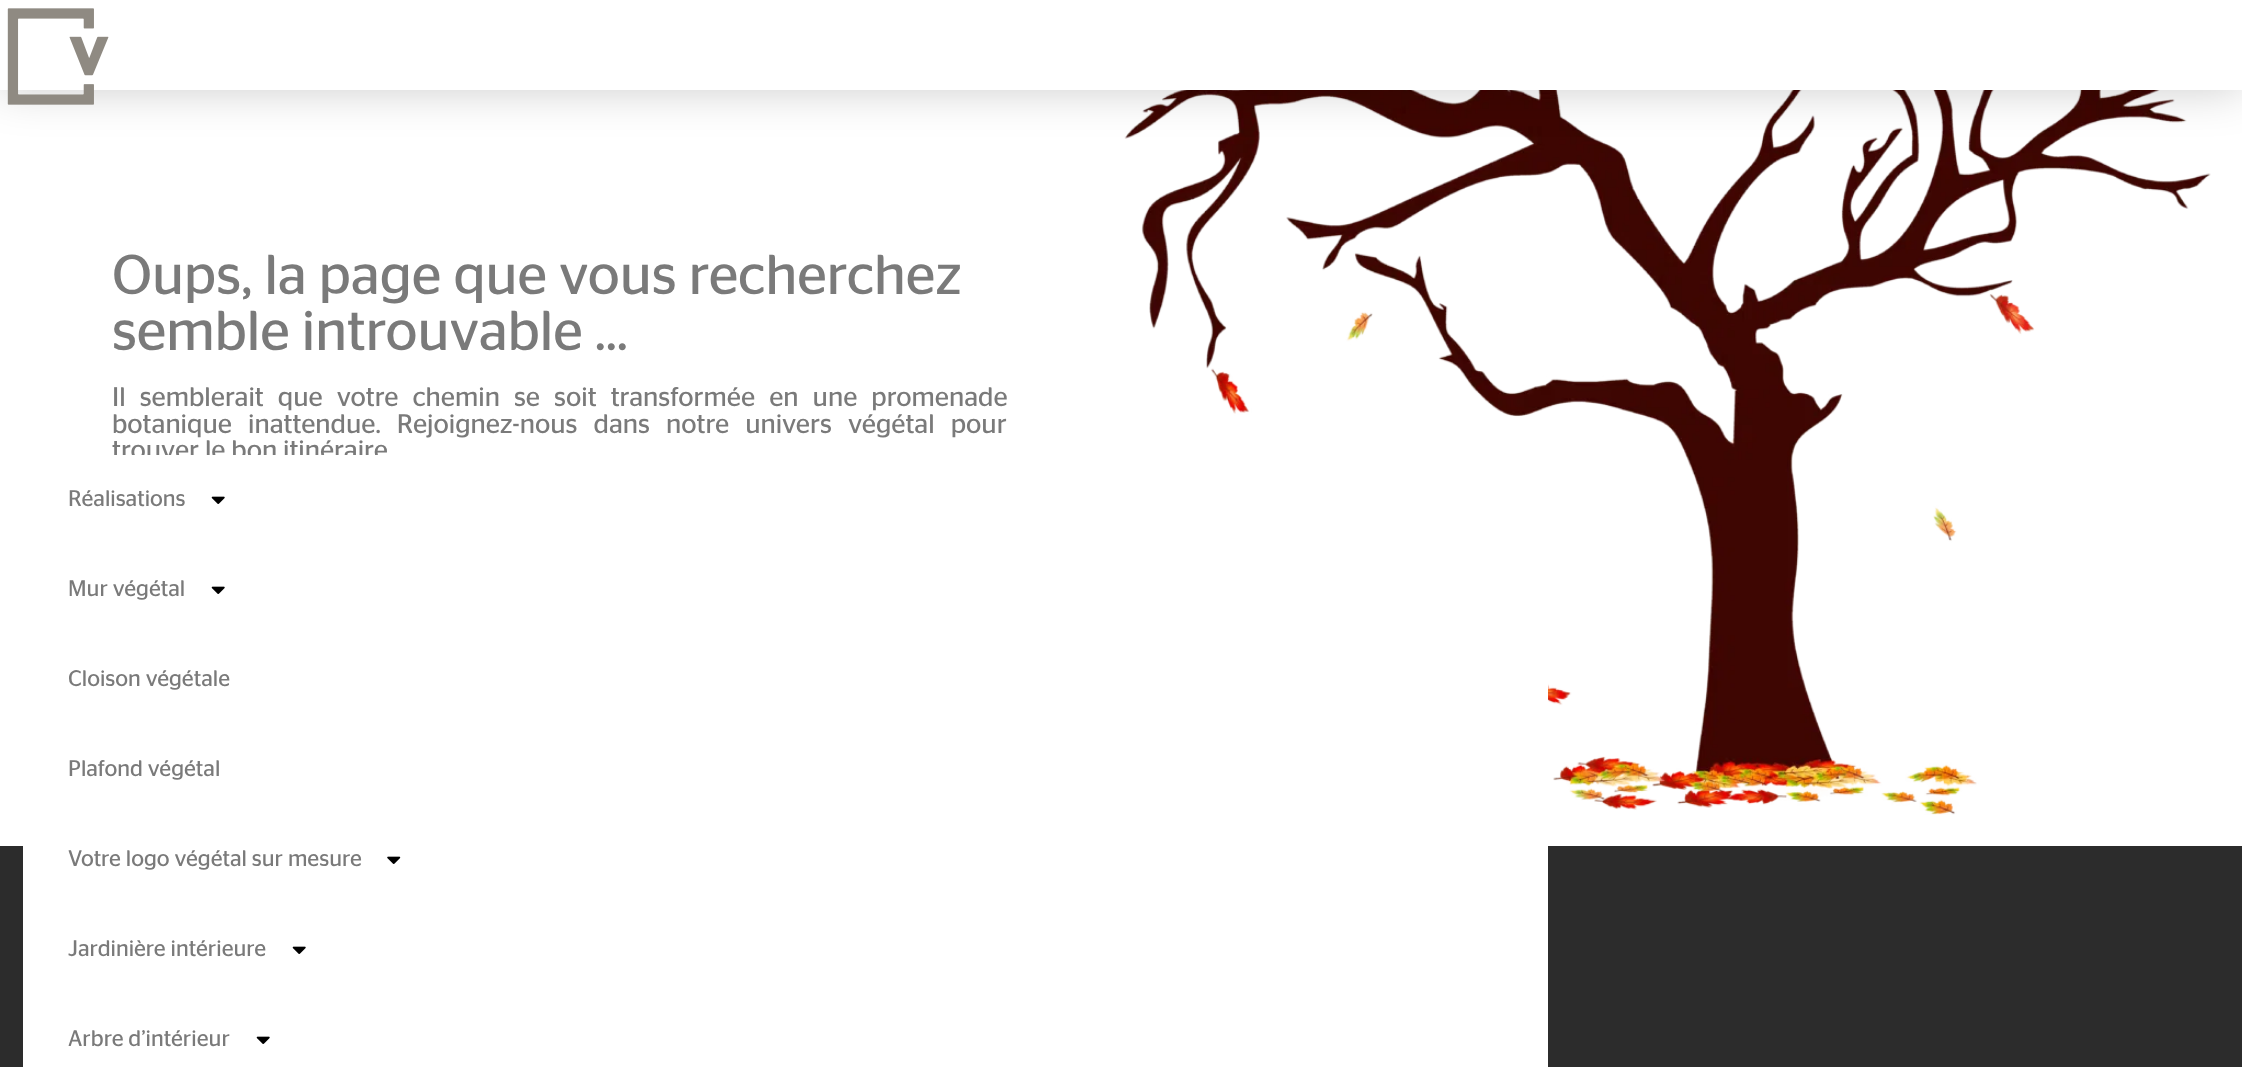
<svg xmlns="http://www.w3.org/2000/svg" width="2242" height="1067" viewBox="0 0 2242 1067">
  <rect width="100%" height="100%" fill="#fff"/>
  <image x="1124" y="90" width="1087" height="725" href="img/1.png"/>
  <path d="M0 0h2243v90H0z" fill="#00000033" filter="blur(22.5px)"/>
  <path d="M0 0h2242v90H0z" fill="#fff"/>
  <image x="7" y="8" width="102" height="97" href="img/2.png"/>
  <path d="M0 846h2242v221H0z" fill="#2c2c2c"/>
  <g font-family="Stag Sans" font-size="56.1" fill="#7a7a7a">
    <text x="112" y="294">Oups, la page que vous recherchez</text>
    <text x="112" y="350">semble introuvable ...</text>
  </g>
  <g font-family="Stag Sans" font-size="26.9" fill="#7a7a7a">
    <text x="112" y="406" word-spacing="8.25">Il semblerait que votre chemin se soit transformée en une promenade</text>
    <text x="112" y="433" word-spacing="10.25">botanique inattendue. Rejoignez-nous dans notre univers végétal pour</text>
    <text x="112" y="459">trouver le bon itinéraire</text>
  </g>
  <path d="M23 455h1525v612H23z" fill="#fff"/>
  <text x="68" y="506" font-family="Stag Sans" font-size="22.5" fill="#7a7a7a">Réalisations</text>
  <image x="211" y="496" width="14" height="8" href="img/3.png"/>
  <text x="68" y="596" font-family="Stag Sans" font-size="22.5" fill="#7a7a7a">Mur végétal</text>
  <image x="211" y="586" width="14" height="8" href="img/3.png"/>
  <g font-family="Stag Sans" font-size="22.5" fill="#7a7a7a">
    <text x="68" y="686">Cloison végétale</text>
    <text x="68" y="776">Plafond végétal</text>
    <text x="68" y="866">Votre logo végétal sur mesure</text>
  </g>
  <image x="387" y="856" width="14" height="8" href="img/4.png"/>
  <text x="68" y="956" font-family="Stag Sans" font-size="22.5" fill="#7a7a7a">Jardinière intérieure</text>
  <image x="292" y="946" width="14" height="8" href="img/3.png"/>
  <text x="68" y="1046" font-family="Stag Sans" font-size="22.5" fill="#7a7a7a">Arbre d’intérieur</text>
  <image x="256" y="1036" width="14" height="8" href="img/3.png"/>
</svg>
